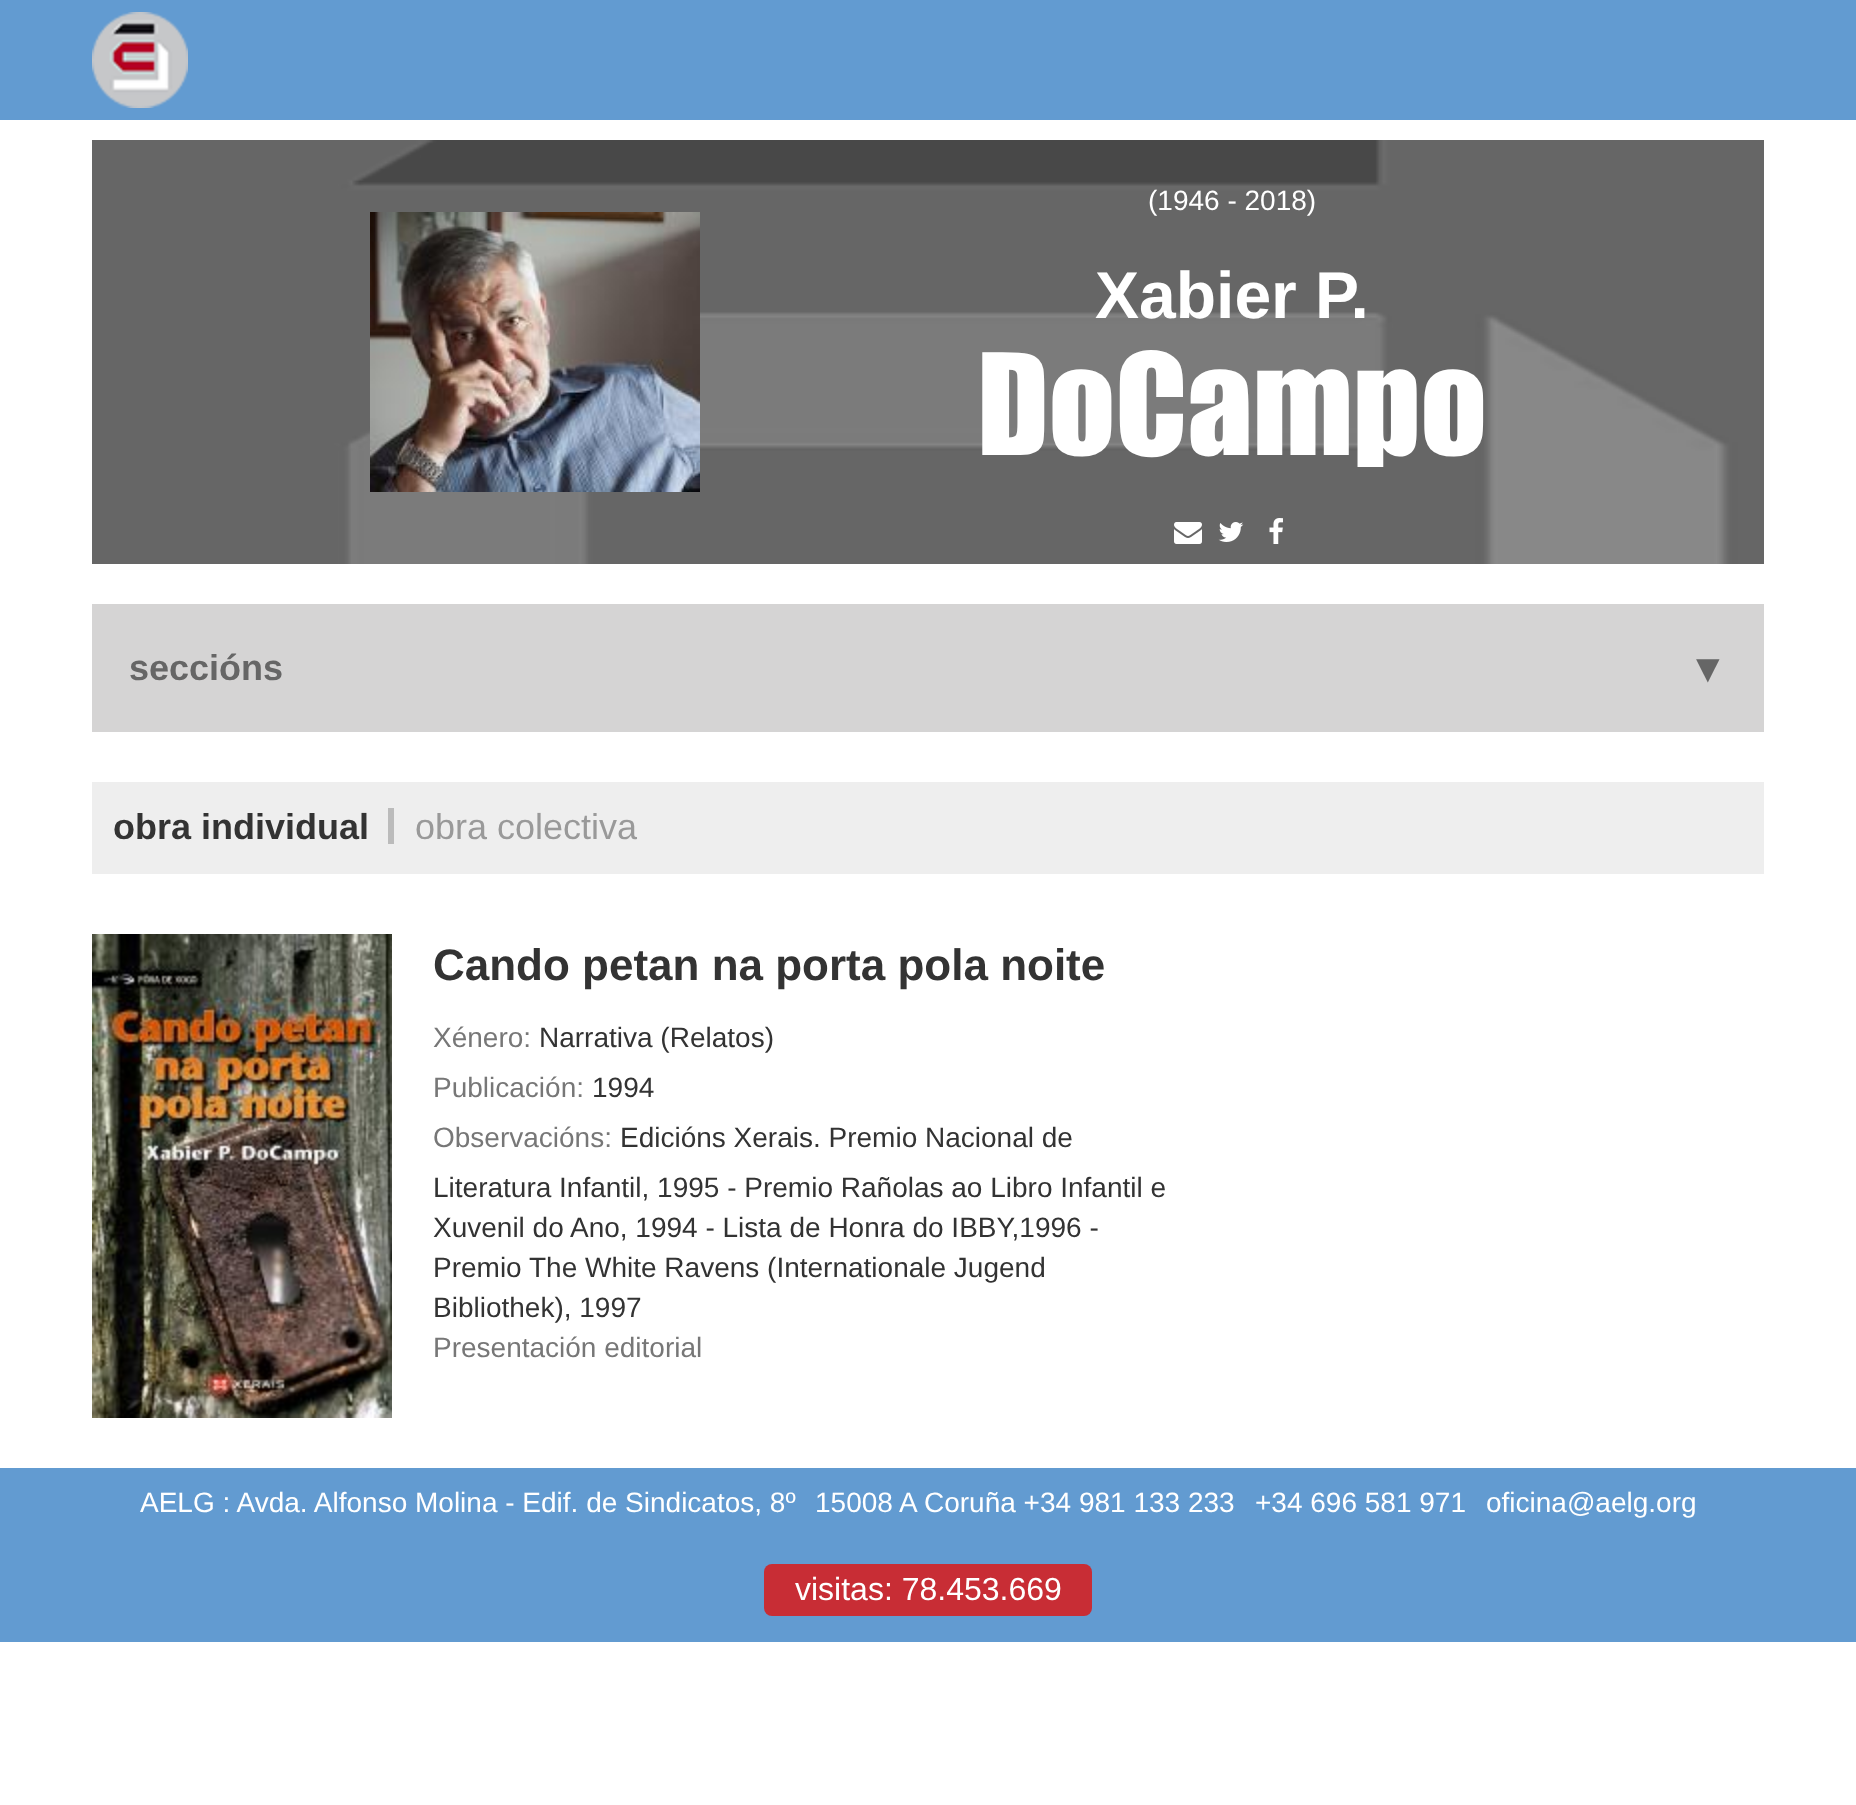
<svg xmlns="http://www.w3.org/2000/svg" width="1856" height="1805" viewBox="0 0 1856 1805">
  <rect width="100%" height="100%" fill="#fff"/>
  <path d="M0 0h1856v120H0z" fill="#629bd1"/>
  <image x="92" y="12" width="96" height="96" href="img/1.png"/>
  <image x="92" y="140" width="1672" height="424" href="img/2.png"/>
  <image x="370" y="212" width="330" height="280" href="img/3.png"/>
  <image x="1174" y="522" width="28" height="22" href="img/4.png"/>
  <image x="1218" y="522" width="26" height="20" href="img/5.png"/>
  <image x="1269" y="518" width="14" height="26" href="img/6.png"/>
  <path d="M92 604h1672v128H92z" fill="#d5d4d4"/>
  <path d="M92 782h1672v92H92z" fill="#eee"/>
  <path d="M388 808h6v36H388z" fill="#bbb"/>
  <image x="92" y="934" width="300" height="484" href="img/7.png"/>
  <path d="M0 1468h1856v174H0z" fill="#629bd1"/>
  <rect x="764" y="1564" width="328" height="52" rx="8" fill="#c82d35"/>
  <text x="1148" y="210" font-family="Arimo" font-size="28" fill="#fff">(1946 - 2018)</text>
  <text x="1095" y="318" font-family="Arimo" font-size="66" font-weight="bold" fill="#fff">Xabier P.</text>
  <text x="977" y="455" font-family="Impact" font-size="130" fill="#fff">DoCampo</text>
  <text x="129" y="680" font-family="Arimo" font-size="36" font-weight="bold" fill="#666">seccións</text>
  <text x="1688" y="682" font-family="Arimo" font-size="40" font-weight="bold" fill="#666">▼</text>
  <text x="113" y="839" font-family="Arimo" font-size="36" font-weight="bold" fill="#333">obra individual</text>
  <text x="415" y="839" font-family="Arimo" font-size="36" fill="#999">obra colectiva</text>
  <text x="433" y="980" font-family="Arimo" font-size="44" font-weight="bold" fill="#333">Cando petan na porta pola noite</text>
  <text x="433" y="1047" font-family="Arimo" font-size="28" fill="#777">Xénero:</text>
  <text x="539" y="1047" font-family="Arimo" font-size="28" fill="#333">Narrativa (Relatos)</text>
  <text x="433" y="1097" font-family="Arimo" font-size="28" fill="#777">Publicación:</text>
  <text x="592" y="1097" font-family="Arimo" font-size="28" fill="#333">1994</text>
  <text x="433" y="1147" font-family="Arimo" font-size="28" fill="#777">Observacións:</text>
  <g font-family="Arimo" font-size="28" fill="#333">
    <text x="620" y="1147">Edicións Xerais. Premio Nacional de</text>
    <text x="433" y="1197">Literatura Infantil, 1995 - Premio Rañolas ao Libro Infantil e</text>
    <text x="433" y="1237">Xuvenil do Ano, 1994 - Lista de Honra do IBBY,1996 -</text>
    <text x="433" y="1277">Premio The White Ravens (Internationale Jugend</text>
    <text x="433" y="1317">Bibliothek), 1997</text>
  </g>
  <text x="433" y="1357" font-family="Arimo" font-size="28" fill="#777">Presentación editorial</text>
  <g font-family="Arimo" font-size="28" fill="#fff">
    <text x="140" y="1512">AELG : Avda. Alfonso Molina - Edif. de Sindicatos, 8º</text>
    <text x="815" y="1512">15008 A Coruña +34 981 133 233</text>
    <text x="1255" y="1512">+34 696 581 971</text>
    <text x="1486" y="1512">oficina@aelg.org</text>
  </g>
  <text x="795" y="1600" font-family="Arimo" font-size="32" fill="#fff">visitas: 78.453.669</text>
</svg>
